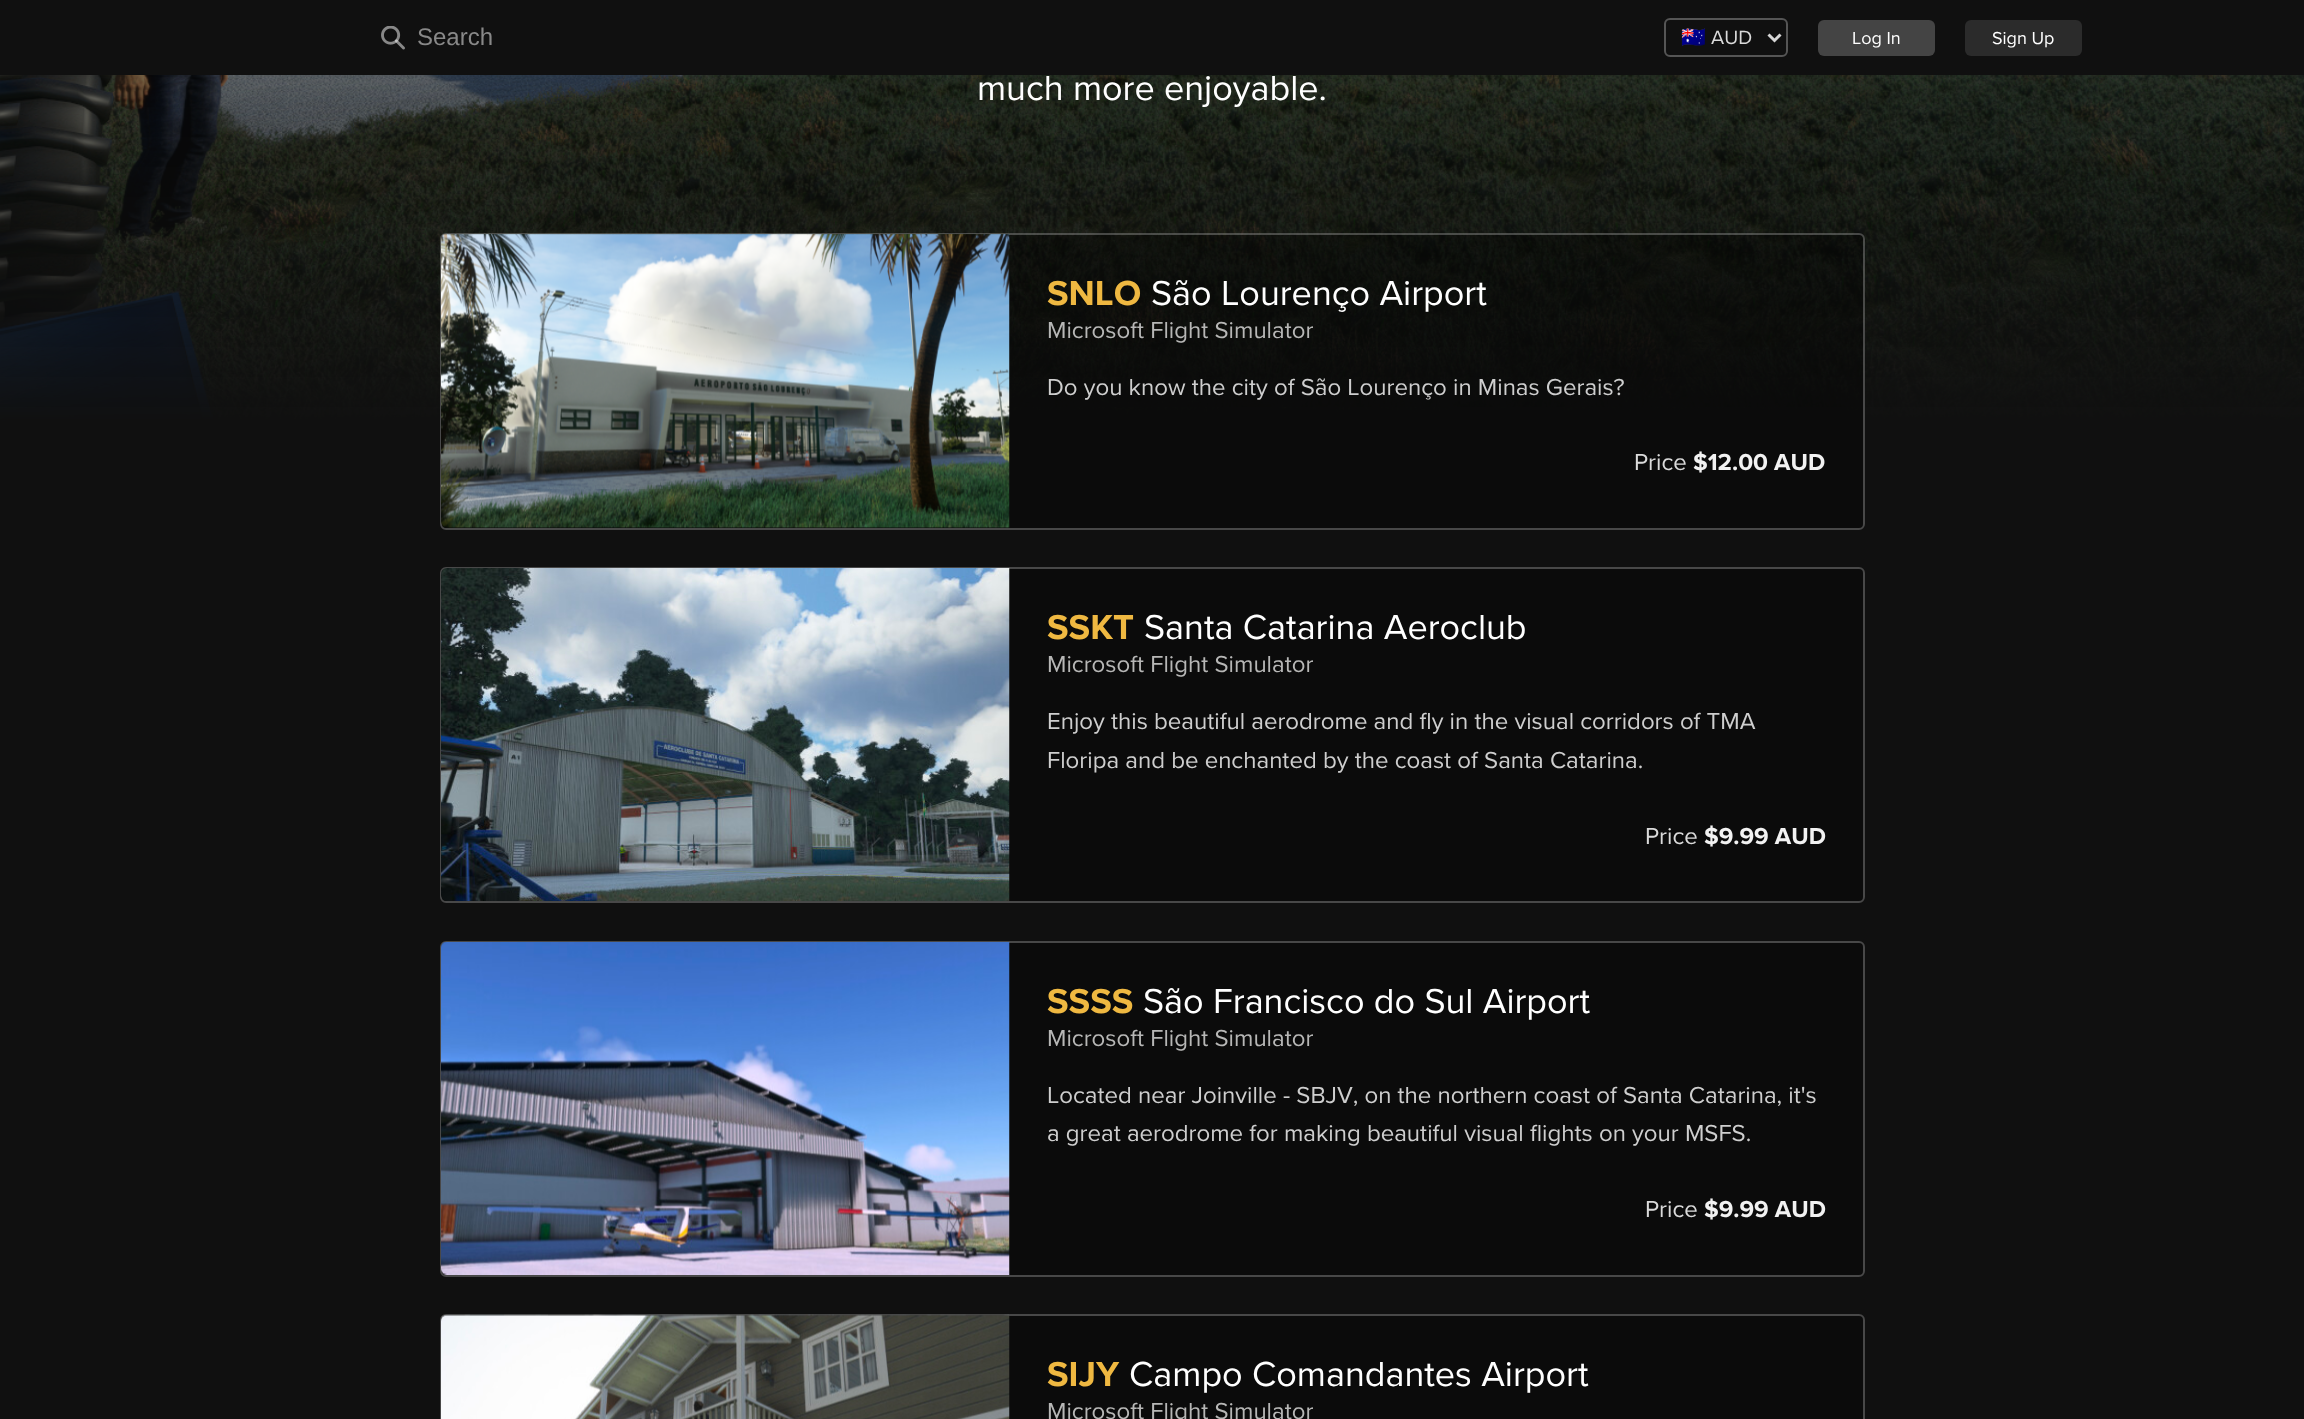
<svg xmlns="http://www.w3.org/2000/svg" width="2304" height="1419" viewBox="0 0 2304 1419">
  <style>*{font-kerning:none!important;font-variant-ligatures:none!important}</style>
  <rect width="100%" height="100%" fill="#101010"/>
  <image x="381" y="26" width="24" height="24" href="img/1.png"/>
  <rect x="1665" y="19" width="122" height="37" rx="5" fill="none" stroke="#555" stroke-width="2"/>
  <path d="M1768.5 34.5L1774.5 40.5L1780.5 34.5" fill="none" stroke="#d7d7d7" stroke-width="3"/>
  <rect x="1818" y="20" width="117" height="36" rx="6" fill="#444"/>
  <rect x="1965" y="20" width="117" height="36" rx="6" fill="#2b2b2b"/>
  <image x="0" y="75" width="2304" height="346" href="img/2.png"/>
  <rect x="440" y="233" width="1425" height="297" rx="6" fill="#0000004d"/>
  <rect x="441" y="234" width="1423" height="295" rx="5" fill="none" stroke="#ffffff40" stroke-width="2"/>
  <image x="441" y="234" width="569" height="294" href="img/3.png"/>
  <rect x="441" y="568" width="1423" height="334" rx="5" fill="#0b0b0b" stroke="#484848" stroke-width="2"/>
  <image x="441" y="568" width="569" height="333" href="img/4.png"/>
  <rect x="441" y="942" width="1423" height="334" rx="5" fill="#0b0b0b" stroke="#484848" stroke-width="2"/>
  <image x="441" y="942" width="569" height="333" href="img/5.png"/>
  <rect x="441" y="1315" width="1423" height="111" rx="5" fill="#0b0b0b" stroke="#484848" stroke-width="2"/>
  <image x="441" y="1314" width="569" height="105" href="img/6.png"/>
  <text x="417" y="45" font-family="Liberation Sans" font-size="24" fill="#888">Search</text>
  <text x="1681" y="44" font-family="Noto Color Emoji" font-size="20" fill="#dadada">🇦🇺</text>
  <text x="1711" y="44" font-family="Proxima Nova" font-size="20" fill="#dadada">AUD</text>
  <g font-family="Proxima Nova" font-size="18" fill="#fff">
    <text x="1852" y="44">Log In</text>
    <text x="1992" y="44">Sign Up</text>
  </g>
  <text x="977" y="100" font-family="Proxima Nova" font-size="36" fill="#fff">much more enjoyable.</text>
  <text x="1047" y="305" font-family="Proxima Nova" font-size="36" font-weight="bold" fill="#efb841">SNLO</text>
  <text x="1151" y="305" font-family="Proxima Nova" font-size="36" fill="#fff">São Lourenço Airport</text>
  <text x="1047" y="338" font-family="Proxima Nova" font-size="24" fill="#b7b7b6">Microsoft Flight Simulator</text>
  <text x="1047" y="395" font-family="Proxima Nova" font-size="24" fill="#cecece">Do you know the city of São Lourenço in Minas Gerais?</text>
  <text x="1634" y="470" font-family="Proxima Nova" font-size="24" fill="#dadada">Price</text>
  <text x="1693" y="470" font-family="Proxima Nova" font-size="24" font-weight="bold" fill="#f2f2f2">$12.00 AUD</text>
  <text x="1047" y="639" font-family="Proxima Nova" font-size="36" font-weight="bold" fill="#efb841">SSKT</text>
  <text x="1144" y="639" font-family="Proxima Nova" font-size="36" fill="#fff">Santa Catarina Aeroclub</text>
  <text x="1047" y="672" font-family="Proxima Nova" font-size="24" fill="#b7b7b6">Microsoft Flight Simulator</text>
  <g font-family="Proxima Nova" font-size="24" fill="#cecece">
    <text x="1047" y="729">Enjoy this beautiful aerodrome and fly in the visual corridors of TMA</text>
    <text x="1047" y="768">Floripa and be enchanted by the coast of Santa Catarina.</text>
  </g>
  <text x="1645" y="844" font-family="Proxima Nova" font-size="24" fill="#dadada">Price</text>
  <text x="1704" y="844" font-family="Proxima Nova" font-size="24" font-weight="bold" fill="#f2f2f2">$9.99 AUD</text>
  <text x="1047" y="1013" font-family="Proxima Nova" font-size="36" font-weight="bold" fill="#efb841">SSSS</text>
  <text x="1143" y="1013" font-family="Proxima Nova" font-size="36" fill="#fff">São Francisco do Sul Airport</text>
  <text x="1047" y="1046" font-family="Proxima Nova" font-size="24" fill="#b7b7b6">Microsoft Flight Simulator</text>
  <g font-family="Proxima Nova" font-size="24" fill="#cecece">
    <text x="1047" y="1103">Located near Joinville - SBJV, on the northern coast of Santa Catarina, it's</text>
    <text x="1047" y="1141">a great aerodrome for making beautiful visual flights on your MSFS.</text>
  </g>
  <text x="1645" y="1217" font-family="Proxima Nova" font-size="24" fill="#dadada">Price</text>
  <text x="1704" y="1217" font-family="Proxima Nova" font-size="24" font-weight="bold" fill="#f2f2f2">$9.99 AUD</text>
  <text x="1047" y="1386" font-family="Proxima Nova" font-size="36" font-weight="bold" fill="#efb841">SIJY</text>
  <text x="1129" y="1386" font-family="Proxima Nova" font-size="36" fill="#fff">Campo Comandantes Airport</text>
  <text x="1047" y="1419" font-family="Proxima Nova" font-size="24" fill="#b7b7b6">Microsoft Flight Simulator</text>
</svg>
